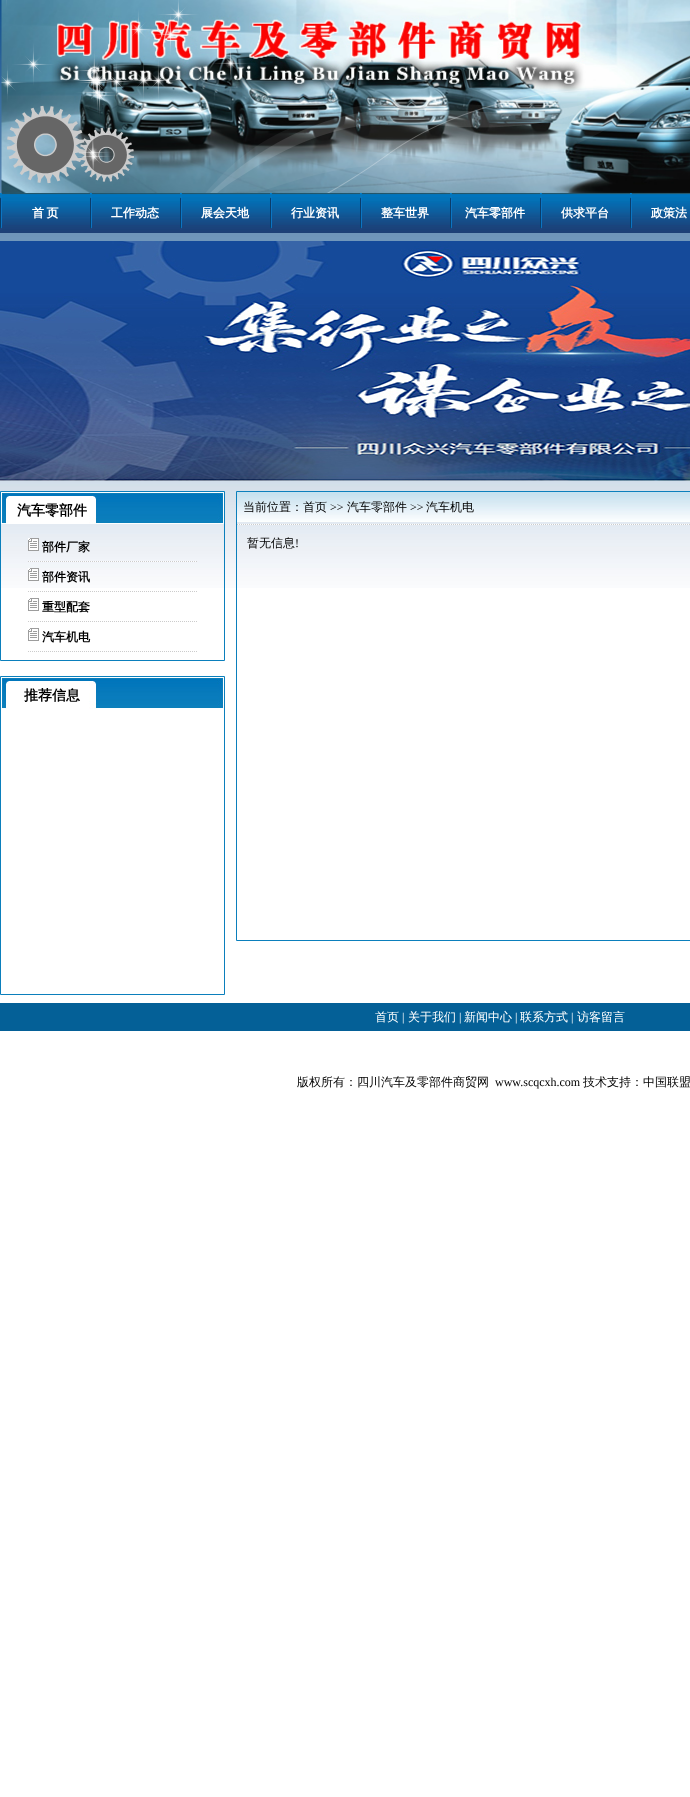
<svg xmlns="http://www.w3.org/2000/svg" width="690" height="1797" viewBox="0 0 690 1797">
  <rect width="100%" height="100%" fill="#fff"/>
  <image x="0" y="0" width="690" height="588" href="img/1.png"/>
  <image x="1" y="0" width="689" height="193" href="img/2.png"/>
  <image x="0" y="193" width="690" height="40" href="img/3.png"/>
  <image x="0" y="193" width="2" height="37" href="img/4.png"/>
  <image x="90" y="193" width="2" height="37" href="img/4.png"/>
  <image x="180" y="193" width="2" height="37" href="img/4.png"/>
  <image x="270" y="193" width="2" height="37" href="img/4.png"/>
  <image x="360" y="193" width="2" height="37" href="img/4.png"/>
  <image x="450" y="193" width="2" height="37" href="img/4.png"/>
  <image x="540" y="193" width="2" height="37" href="img/4.png"/>
  <image x="630" y="193" width="2" height="37" href="img/4.png"/>
  <image x="0" y="241" width="690" height="240" href="img/5.png"/>
  <path d="M0.5 491.5h224v169H0.5z" fill="none" stroke="#0b7fbc"/>
  <image x="1" y="492" width="223" height="32" href="img/6.png"/>
  <image x="28" y="561" width="169" height="1" href="img/7.png"/>
  <image x="28" y="538" width="11" height="13" href="img/8.png"/>
  <image x="28" y="591" width="169" height="1" href="img/7.png"/>
  <image x="28" y="568" width="11" height="13" href="img/8.png"/>
  <image x="28" y="621" width="169" height="1" href="img/7.png"/>
  <image x="28" y="598" width="11" height="13" href="img/8.png"/>
  <image x="28" y="651" width="169" height="1" href="img/7.png"/>
  <image x="28" y="628" width="11" height="13" href="img/8.png"/>
  <path d="M0.5 676.5h224v318H0.5z" fill="none" stroke="#0b7fbc"/>
  <image x="1" y="677" width="223" height="32" href="img/6.png"/>
  <path d="M236.5 491.5h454v449H236.5z" fill="none" stroke="#0b7fbc"/>
  <image x="237" y="492" width="453" height="30" href="img/9.png"/>
  <image x="237" y="524" width="453" height="1" href="img/10.png"/>
  <path d="M0 1003h690v28H0z" fill="#046097"/>
  <g font-family="WenQuanYi Zen Hei" font-size="12" font-weight="bold" fill="#fff">
    <text x="32" y="217" word-spacing="-1">首 页</text>
    <text x="111" y="217">工作动态</text>
    <text x="201" y="217">展会天地</text>
    <text x="291" y="217">行业资讯</text>
    <text x="381" y="217">整车世界</text>
    <text x="465" y="217">汽车零部件</text>
    <text x="561" y="217">供求平台</text>
    <text x="651" y="217">政策法</text>
  </g>
  <text x="17" y="515" font-family="WenQuanYi Zen Hei" font-size="14" font-weight="bold" fill="#000">汽车零部件</text>
  <g font-family="WenQuanYi Zen Hei" font-size="12" font-weight="bold" fill="#000">
    <text x="42" y="551">部件厂家</text>
    <text x="42" y="581">部件资讯</text>
    <text x="42" y="611">重型配套</text>
    <text x="42" y="641">汽车机电</text>
  </g>
  <text x="24" y="700" font-family="WenQuanYi Zen Hei" font-size="14" font-weight="bold" fill="#000">推荐信息</text>
  <text x="243" y="511" font-family="WenQuanYi Zen Hei" font-size="12" font-weight="500" fill="#000">当前位置：首页</text>
  <text x="330" y="511" font-family="Liberation Serif" font-size="12" fill="#000">&gt;&gt;</text>
  <text x="347" y="511" font-family="WenQuanYi Zen Hei" font-size="12" font-weight="500" fill="#000">汽车零部件</text>
  <text x="410" y="511" font-family="Liberation Serif" font-size="12" fill="#000">&gt;&gt;</text>
  <g font-family="WenQuanYi Zen Hei" font-size="12" font-weight="500" fill="#000">
    <text x="426" y="511">汽车机电</text>
    <text x="247" y="547">暂无信息</text>
  </g>
  <text x="295" y="547" font-family="Liberation Serif" font-size="12" fill="#000">!</text>
  <text x="375" y="1021" font-family="WenQuanYi Zen Hei" font-size="12" font-weight="500" fill="#fff">首页</text>
  <text x="402" y="1021" font-family="Liberation Serif" font-size="12" fill="#fff">|</text>
  <text x="408" y="1021" font-family="WenQuanYi Zen Hei" font-size="12" font-weight="500" fill="#fff">关于我们</text>
  <text x="459" y="1021" font-family="Liberation Serif" font-size="12" fill="#fff">|</text>
  <text x="464" y="1021" font-family="WenQuanYi Zen Hei" font-size="12" font-weight="500" fill="#fff">新闻中心</text>
  <text x="515" y="1021" font-family="Liberation Serif" font-size="12" fill="#fff">|</text>
  <text x="520" y="1021" font-family="WenQuanYi Zen Hei" font-size="12" font-weight="500" fill="#fff">联系方式</text>
  <text x="571" y="1021" font-family="Liberation Serif" font-size="12" fill="#fff">|</text>
  <text x="577" y="1021" font-family="WenQuanYi Zen Hei" font-size="12" font-weight="500" fill="#fff">访客留言</text>
  <text x="297" y="1086" font-family="WenQuanYi Zen Hei" font-size="12" font-weight="500" fill="#000">版权所有：四川汽车及零部件商贸网</text>
  <text x="495" y="1086" font-family="Liberation Serif" font-size="12" fill="#000">www.scqcxh.com</text>
  <text x="583" y="1086" font-family="WenQuanYi Zen Hei" font-size="12" font-weight="500" fill="#000">技术支持：中国联盟</text>
</svg>
